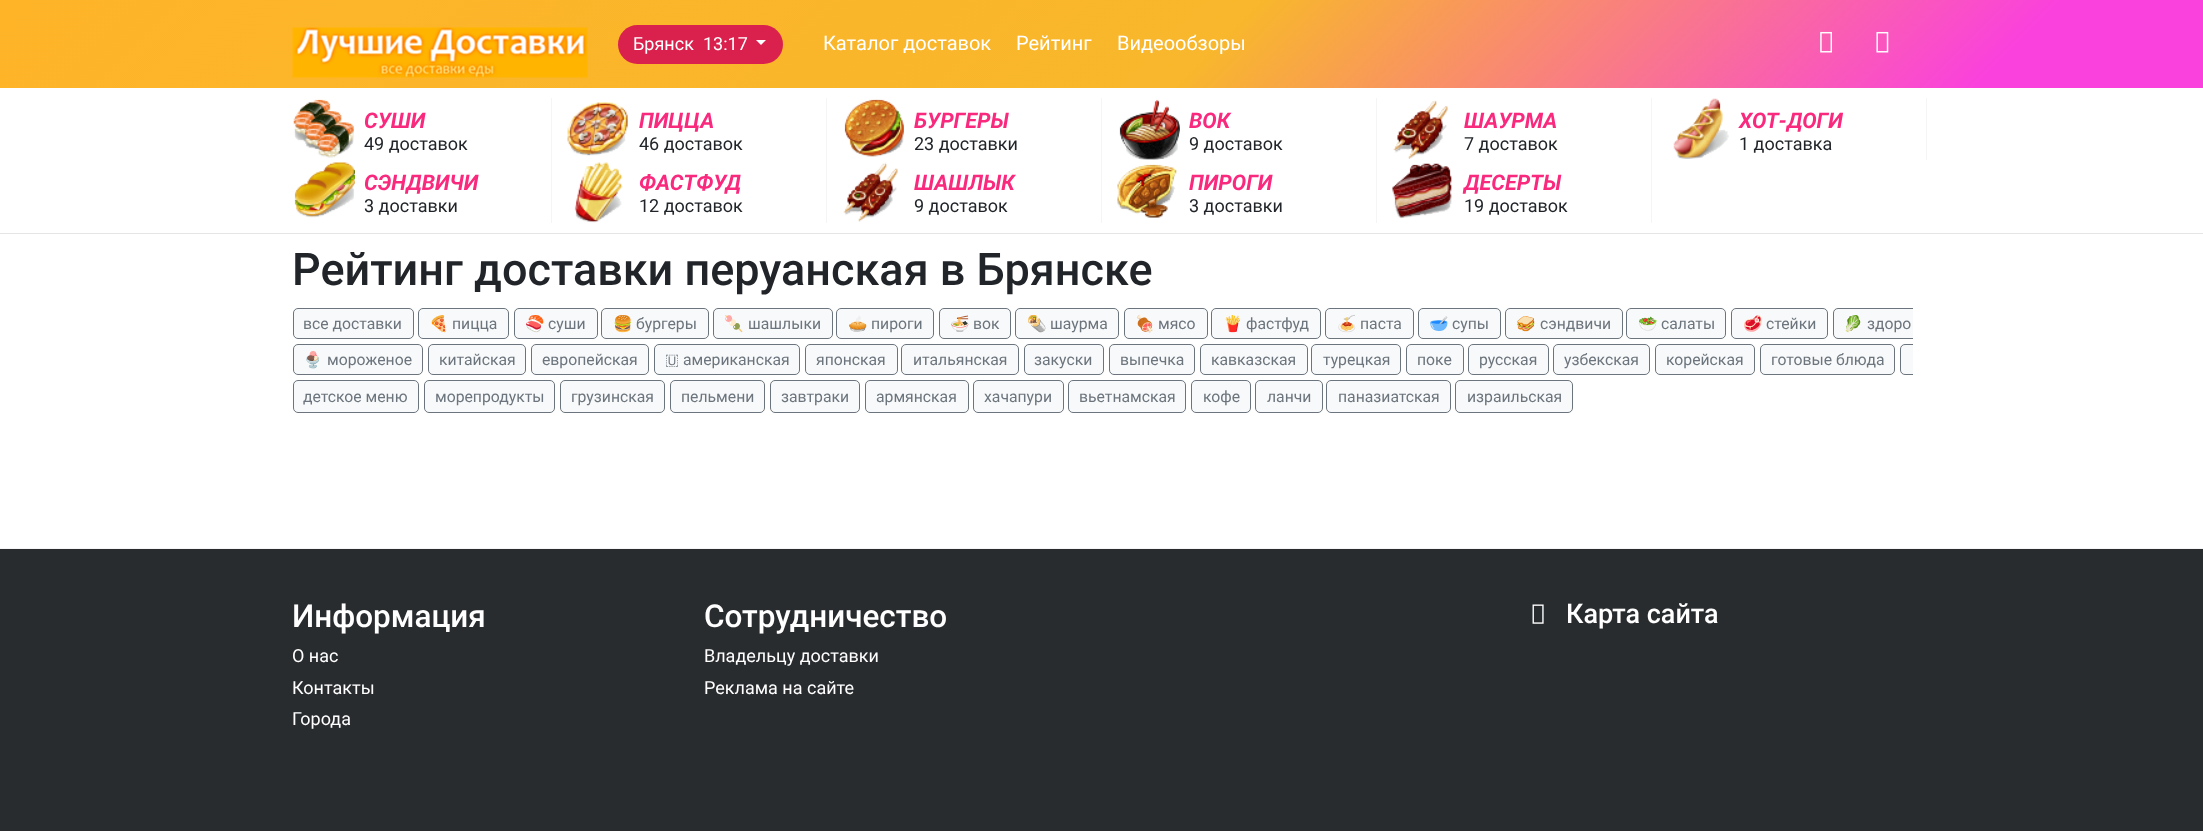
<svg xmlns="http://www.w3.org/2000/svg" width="2203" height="837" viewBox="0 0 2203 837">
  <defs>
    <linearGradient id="g1" gradientUnits="userSpaceOnUse" x1="529" y1="-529" x2="1675" y2="617"><stop offset="0" stop-color="#ffb428"/><stop offset="0.55" stop-color="#f8b72c"/><stop offset="0.9" stop-color="#fa41dd"/></linearGradient>
    <clipPath id="clip1"><path d="M293 308h1620v110H293z"/></clipPath>
  </defs>
  <rect width="100%" height="100%" fill="#fff"/>
  <path d="M0 0h2203v88H0z" fill="url(#g1)"/>
  <image x="292" y="27" width="296" height="51" href="img/1.png"/>
  <rect x="618" y="25" width="165" height="39" rx="19.5" fill="#da214d"/>
  <path d="M756 40H766L761 45Z" fill="#fff"/>
  <image x="1820" y="31" width="12" height="22" href="img/2.png"/>
  <image x="1876" y="31" width="13" height="22" href="img/3.png"/>
  <path d="M0 233h2203v1H0z" fill="#e5e5e5"/>
  <path d="M551 98h1v125H551z" fill="#f5f5f5"/>
  <image x="293" y="99" width="61" height="59" href="img/4.png"/>
  <path d="M826 98h1v125H826z" fill="#f5f5f5"/>
  <image x="567" y="102" width="61" height="54" href="img/5.png"/>
  <path d="M1101 98h1v125H1101z" fill="#f5f5f5"/>
  <image x="844" y="99" width="60" height="58" href="img/6.png"/>
  <path d="M1376 98h1v125H1376z" fill="#f5f5f5"/>
  <image x="1119" y="99" width="61" height="61" href="img/7.png"/>
  <path d="M1651 98h1v125H1651z" fill="#f5f5f5"/>
  <image x="1393" y="100" width="55" height="59" href="img/8.png"/>
  <path d="M1926 98h1v62H1926z" fill="#f5f5f5"/>
  <image x="1673" y="98" width="56" height="61" href="img/9.png"/>
  <image x="294" y="161" width="61" height="57" href="img/10.png"/>
  <image x="574" y="162" width="49" height="61" href="img/11.png"/>
  <image x="843" y="162" width="55" height="60" href="img/12.png"/>
  <image x="1117" y="164" width="60" height="54" href="img/13.png"/>
  <image x="1392" y="163" width="60" height="56" href="img/14.png"/>
  <rect x="293.5" y="308.5" width="120" height="30" rx="4.5" fill="#f8f9fa" stroke="#6c757d"/>
  <rect x="418.5" y="308.5" width="90" height="30" rx="4.5" fill="#f8f9fa" stroke="#6c757d"/>
  <rect x="514.5" y="308.5" width="83" height="30" rx="4.5" fill="#f8f9fa" stroke="#6c757d"/>
  <rect x="601.5" y="308.5" width="107" height="30" rx="4.5" fill="#f8f9fa" stroke="#6c757d"/>
  <rect x="713.5" y="308.5" width="119" height="30" rx="4.5" fill="#f8f9fa" stroke="#6c757d"/>
  <rect x="836.5" y="308.5" width="97" height="30" rx="4.5" fill="#f8f9fa" stroke="#6c757d"/>
  <rect x="939.5" y="308.5" width="71" height="30" rx="4.5" fill="#f8f9fa" stroke="#6c757d"/>
  <rect x="1015.5" y="308.5" width="103" height="30" rx="4.5" fill="#f8f9fa" stroke="#6c757d"/>
  <rect x="1124.5" y="308.5" width="83" height="30" rx="4.5" fill="#f8f9fa" stroke="#6c757d"/>
  <rect x="1211.5" y="308.5" width="109" height="30" rx="4.5" fill="#f8f9fa" stroke="#6c757d"/>
  <rect x="1325.5" y="308.5" width="88" height="30" rx="4.5" fill="#f8f9fa" stroke="#6c757d"/>
  <rect x="1418.5" y="308.5" width="82" height="30" rx="4.5" fill="#f8f9fa" stroke="#6c757d"/>
  <rect x="1505.5" y="308.5" width="117" height="30" rx="4.5" fill="#f8f9fa" stroke="#6c757d"/>
  <rect x="1626.5" y="308.5" width="99" height="30" rx="4.5" fill="#f8f9fa" stroke="#6c757d"/>
  <rect x="1731.5" y="308.5" width="96" height="30" rx="4.5" fill="#f8f9fa" stroke="#6c757d"/>
  <path d="M1838 308H1913V339H1838C1835 339 1833 337 1833 334V313C1833 310 1835 308 1838 308Z" fill="#f8f9fa"/>
  <g clip-path="url(#clip1)">
    <rect x="1833.5" y="308.5" width="145" height="30" rx="4.5" fill="none" stroke="#6c757d"/>
  </g>
  <rect x="293.5" y="344.5" width="129" height="30" rx="4.5" fill="#f8f9fa" stroke="#6c757d"/>
  <rect x="428.5" y="344.5" width="97" height="30" rx="4.5" fill="#f8f9fa" stroke="#6c757d"/>
  <rect x="531.5" y="344.5" width="117" height="30" rx="4.5" fill="#f8f9fa" stroke="#6c757d"/>
  <rect x="654.5" y="344.5" width="145" height="30" rx="4.5" fill="#f8f9fa" stroke="#6c757d"/>
  <rect x="805.5" y="344.5" width="92" height="30" rx="4.5" fill="#f8f9fa" stroke="#6c757d"/>
  <rect x="901.5" y="344.5" width="117" height="30" rx="4.5" fill="#f8f9fa" stroke="#6c757d"/>
  <rect x="1024.5" y="344.5" width="79" height="30" rx="4.5" fill="#f8f9fa" stroke="#6c757d"/>
  <rect x="1109.5" y="344.5" width="85" height="30" rx="4.5" fill="#f8f9fa" stroke="#6c757d"/>
  <rect x="1200.5" y="344.5" width="107" height="30" rx="4.5" fill="#f8f9fa" stroke="#6c757d"/>
  <rect x="1311.5" y="344.5" width="89" height="30" rx="4.5" fill="#f8f9fa" stroke="#6c757d"/>
  <rect x="1406.5" y="344.5" width="57" height="30" rx="4.5" fill="#f8f9fa" stroke="#6c757d"/>
  <rect x="1468.5" y="344.5" width="80" height="30" rx="4.5" fill="#f8f9fa" stroke="#6c757d"/>
  <rect x="1553.5" y="344.5" width="96" height="30" rx="4.5" fill="#f8f9fa" stroke="#6c757d"/>
  <rect x="1655.5" y="344.5" width="99" height="30" rx="4.5" fill="#f8f9fa" stroke="#6c757d"/>
  <rect x="1760.5" y="344.5" width="134" height="30" rx="4.5" fill="#f8f9fa" stroke="#6c757d"/>
  <path d="M1905 344H1913V375H1905C1902 375 1900 373 1900 370V349C1900 346 1902 344 1905 344Z" fill="#f8f9fa"/>
  <g clip-path="url(#clip1)">
    <rect x="1900.5" y="344.5" width="158" height="30" rx="4.5" fill="none" stroke="#6c757d"/>
  </g>
  <rect x="293.5" y="380.5" width="125" height="32" rx="4.5" fill="#f8f9fa" stroke="#6c757d"/>
  <rect x="424.5" y="380.5" width="130" height="32" rx="4.5" fill="#f8f9fa" stroke="#6c757d"/>
  <rect x="560.5" y="380.5" width="104" height="32" rx="4.5" fill="#f8f9fa" stroke="#6c757d"/>
  <rect x="670.5" y="380.5" width="94" height="32" rx="4.5" fill="#f8f9fa" stroke="#6c757d"/>
  <rect x="770.5" y="380.5" width="89" height="32" rx="4.5" fill="#f8f9fa" stroke="#6c757d"/>
  <rect x="865.5" y="380.5" width="103" height="32" rx="4.5" fill="#f8f9fa" stroke="#6c757d"/>
  <rect x="973.5" y="380.5" width="90" height="32" rx="4.5" fill="#f8f9fa" stroke="#6c757d"/>
  <rect x="1068.5" y="380.5" width="117" height="32" rx="4.5" fill="#f8f9fa" stroke="#6c757d"/>
  <rect x="1191.5" y="380.5" width="59" height="32" rx="4.5" fill="#f8f9fa" stroke="#6c757d"/>
  <rect x="1255.5" y="380.5" width="67" height="32" rx="4.5" fill="#f8f9fa" stroke="#6c757d"/>
  <rect x="1326.5" y="380.5" width="124" height="32" rx="4.5" fill="#f8f9fa" stroke="#6c757d"/>
  <rect x="1455.5" y="380.5" width="117" height="32" rx="4.5" fill="#f8f9fa" stroke="#6c757d"/>
  <path d="M0 549h2203v282H0z" fill="#292c2f"/>
  <path d="M0 548h2203v1H0z" fill="#f5f5f5"/>
  <image x="1532" y="604" width="12" height="20" href="img/15.png"/>
  <g font-family="Roboto" font-size="18" fill="#fff">
    <text x="633" y="50">Брянск</text>
    <text x="703" y="50">13:17</text>
  </g>
  <g font-family="Roboto" font-size="20" fill="#fff">
    <text x="823" y="50">Каталог доставок</text>
    <text x="1016" y="50">Рейтинг</text>
    <text x="1117" y="50">Видеообзоры</text>
  </g>
  <text x="364" y="128" font-family="Roboto" font-size="21.5" font-weight="bold" font-style="italic" fill="#f9297e">СУШИ</text>
  <text x="364" y="150" font-family="Roboto" font-size="18" fill="#212529">49 доставок</text>
  <text x="639" y="128" font-family="Roboto" font-size="21.5" font-weight="bold" font-style="italic" fill="#f9297e">ПИЦЦА</text>
  <text x="639" y="150" font-family="Roboto" font-size="18" fill="#212529">46 доставок</text>
  <text x="914" y="128" font-family="Roboto" font-size="21.5" font-weight="bold" font-style="italic" fill="#f9297e">БУРГЕРЫ</text>
  <text x="914" y="150" font-family="Roboto" font-size="18" fill="#212529">23 доставки</text>
  <text x="1189" y="128" font-family="Roboto" font-size="21.5" font-weight="bold" font-style="italic" fill="#f9297e">ВОК</text>
  <text x="1189" y="150" font-family="Roboto" font-size="18" fill="#212529">9 доставок</text>
  <text x="1464" y="128" font-family="Roboto" font-size="21.5" font-weight="bold" font-style="italic" fill="#f9297e">ШАУРМА</text>
  <text x="1464" y="150" font-family="Roboto" font-size="18" fill="#212529">7 доставок</text>
  <text x="1739" y="128" font-family="Roboto" font-size="21.5" font-weight="bold" font-style="italic" fill="#f9297e">ХОТ‑ДОГИ</text>
  <text x="1739" y="150" font-family="Roboto" font-size="18" fill="#212529">1 доставка</text>
  <text x="364" y="190" font-family="Roboto" font-size="21.5" font-weight="bold" font-style="italic" fill="#f9297e">СЭНДВИЧИ</text>
  <text x="364" y="212" font-family="Roboto" font-size="18" fill="#212529">3 доставки</text>
  <text x="639" y="190" font-family="Roboto" font-size="21.5" font-weight="bold" font-style="italic" fill="#f9297e">ФАСТФУД</text>
  <text x="639" y="212" font-family="Roboto" font-size="18" fill="#212529">12 доставок</text>
  <text x="914" y="190" font-family="Roboto" font-size="21.5" font-weight="bold" font-style="italic" fill="#f9297e">ШАШЛЫК</text>
  <text x="914" y="212" font-family="Roboto" font-size="18" fill="#212529">9 доставок</text>
  <text x="1189" y="190" font-family="Roboto" font-size="21.5" font-weight="bold" font-style="italic" fill="#f9297e">ПИРОГИ</text>
  <text x="1189" y="212" font-family="Roboto" font-size="18" fill="#212529">3 доставки</text>
  <text x="1464" y="190" font-family="Roboto" font-size="21.5" font-weight="bold" font-style="italic" fill="#f9297e">ДЕСЕРТЫ</text>
  <text x="1464" y="212" font-family="Roboto" font-size="18" fill="#212529">19 доставок</text>
  <text x="292" y="285" font-family="Roboto" font-size="45" font-weight="500" fill="#212529">Рейтинг доставки перуанская в Брянске</text>
  <text x="303" y="329" font-family="Roboto" font-size="15.75" fill="#6c757d">все доставки</text>
  <text x="429" y="329" font-family="Noto Color Emoji" font-size="15.75" fill="#6c757d">🍕</text>
  <text x="452" y="329" font-family="Roboto" font-size="15.75" fill="#6c757d">пицца</text>
  <text x="525" y="329" font-family="Noto Color Emoji" font-size="15.75" fill="#6c757d">🍣</text>
  <text x="548" y="329" font-family="Roboto" font-size="15.75" fill="#6c757d">суши</text>
  <text x="613" y="329" font-family="Noto Color Emoji" font-size="15.75" fill="#6c757d">🍔</text>
  <text x="636" y="329" font-family="Roboto" font-size="15.75" fill="#6c757d">бургеры</text>
  <text x="724" y="329" font-family="Noto Color Emoji" font-size="15.75" fill="#6c757d">🍡</text>
  <text x="748" y="329" font-family="Roboto" font-size="15.75" fill="#6c757d">шашлыки</text>
  <text x="848" y="329" font-family="Noto Color Emoji" font-size="15.75" fill="#6c757d">🥧</text>
  <text x="871" y="329" font-family="Roboto" font-size="15.75" fill="#6c757d">пироги</text>
  <text x="950" y="329" font-family="Noto Color Emoji" font-size="15.75" fill="#6c757d">🍜</text>
  <text x="973" y="329" font-family="Roboto" font-size="15.75" fill="#6c757d">вок</text>
  <text x="1027" y="329" font-family="Noto Color Emoji" font-size="15.75" fill="#6c757d">🌯</text>
  <text x="1050" y="329" font-family="Roboto" font-size="15.75" fill="#6c757d">шаурма</text>
  <text x="1135" y="329" font-family="Noto Color Emoji" font-size="15.75" fill="#6c757d">🍖</text>
  <text x="1158" y="329" font-family="Roboto" font-size="15.75" fill="#6c757d">мясо</text>
  <text x="1223" y="329" font-family="Noto Color Emoji" font-size="15.75" fill="#6c757d">🍟</text>
  <text x="1246" y="329" font-family="Roboto" font-size="15.75" fill="#6c757d">фастфуд</text>
  <text x="1337" y="329" font-family="Noto Color Emoji" font-size="15.75" fill="#6c757d">🍝</text>
  <text x="1360" y="329" font-family="Roboto" font-size="15.75" fill="#6c757d">паста</text>
  <text x="1429" y="329" font-family="Noto Color Emoji" font-size="15.75" fill="#6c757d">🥣</text>
  <text x="1452" y="329" font-family="Roboto" font-size="15.75" fill="#6c757d">супы</text>
  <text x="1516" y="329" font-family="Noto Color Emoji" font-size="15.75" fill="#6c757d">🥪</text>
  <text x="1540" y="329" font-family="Roboto" font-size="15.75" fill="#6c757d">сэндвичи</text>
  <text x="1638" y="329" font-family="Noto Color Emoji" font-size="15.75" fill="#6c757d">🥗</text>
  <text x="1661" y="329" font-family="Roboto" font-size="15.75" fill="#6c757d">салаты</text>
  <text x="1743" y="329" font-family="Noto Color Emoji" font-size="15.75" fill="#6c757d">🥩</text>
  <text x="1766" y="329" font-family="Roboto" font-size="15.75" fill="#6c757d">стейки</text>
  <text x="1843" y="329" font-family="Noto Color Emoji" font-size="15.75" fill="#6c757d">🥬</text>
  <text x="1867" y="329" font-family="Roboto" font-size="15.75" fill="#6c757d">здоро</text>
  <text x="303" y="365" font-family="Noto Color Emoji" font-size="15.75" fill="#6c757d">🍨</text>
  <g font-family="Roboto" font-size="15.75" fill="#6c757d">
    <text x="327" y="365">мороженое</text>
    <text x="439" y="365">китайская</text>
    <text x="542" y="365">европейская</text>
  </g>
  <text x="665" y="365" font-family="FreeSans" font-size="15.75" fill="#6c757d">🇺</text>
  <g font-family="Roboto" font-size="15.75" fill="#6c757d">
    <text x="683" y="365">американская</text>
    <text x="816" y="365">японская</text>
    <text x="913" y="365">итальянская</text>
    <text x="1034" y="365">закуски</text>
    <text x="1120" y="365">выпечка</text>
    <text x="1211" y="365">кавказская</text>
    <text x="1323" y="365">турецкая</text>
    <text x="1417" y="365">поке</text>
    <text x="1479" y="365">русская</text>
    <text x="1564" y="365">узбекская</text>
    <text x="1666" y="365">корейская</text>
    <text x="1771" y="365">готовые блюда</text>
    <text x="303" y="402">детское меню</text>
    <text x="435" y="402">морепродукты</text>
    <text x="571" y="402">грузинская</text>
    <text x="681" y="402">пельмени</text>
    <text x="781" y="402">завтраки</text>
    <text x="876" y="402">армянская</text>
    <text x="984" y="402">хачапури</text>
    <text x="1079" y="402">вьетнамская</text>
    <text x="1203" y="402">кофе</text>
    <text x="1267" y="402">ланчи</text>
    <text x="1338" y="402">паназиатская</text>
    <text x="1467" y="402">израильская</text>
  </g>
  <text x="292" y="627" font-family="Roboto" font-size="31.5" font-weight="500" fill="#fff">Информация</text>
  <g font-family="Roboto" font-size="18" fill="#fff">
    <text x="292" y="662">О нас</text>
    <text x="292" y="694">Контакты</text>
    <text x="292" y="725">Города</text>
  </g>
  <text x="704" y="627" font-family="Roboto" font-size="31.5" font-weight="500" fill="#fff">Сотрудничество</text>
  <g font-family="Roboto" font-size="18" fill="#fff">
    <text x="704" y="662">Владельцу доставки</text>
    <text x="704" y="694">Реклама на сайте</text>
  </g>
  <text x="1566" y="623" font-family="Roboto" font-size="27" font-weight="500" fill="#fff">Карта сайта</text>
</svg>
